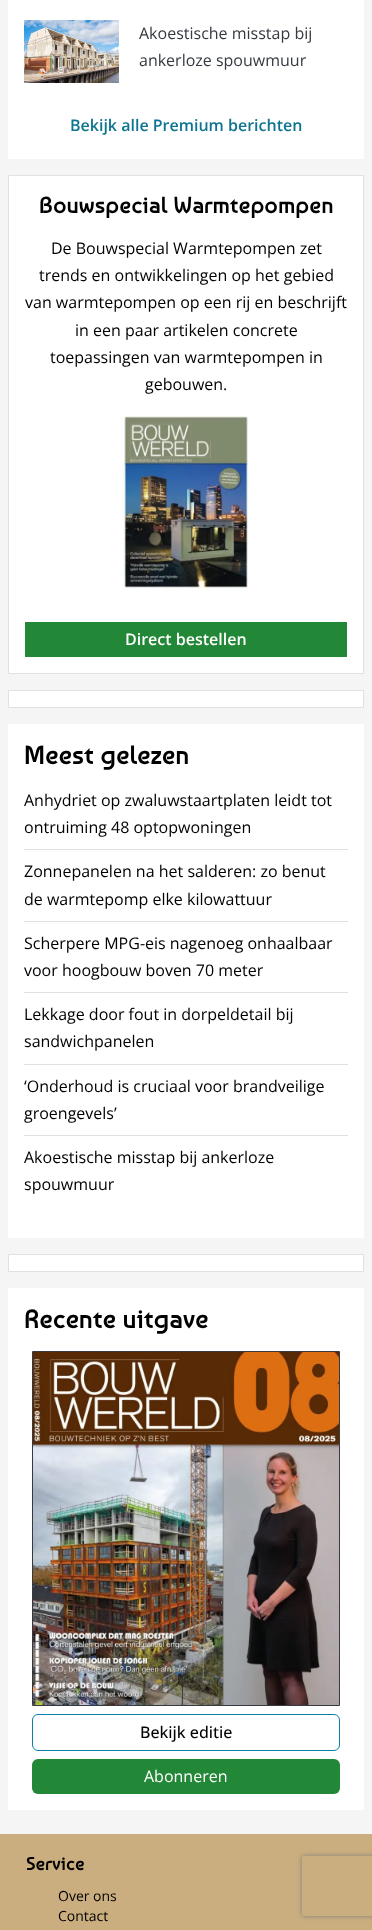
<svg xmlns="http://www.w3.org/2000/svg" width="372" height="1930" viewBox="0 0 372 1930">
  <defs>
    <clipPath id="clip1"><path d="M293 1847H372V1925H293ZM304 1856H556C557 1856 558 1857 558 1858V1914C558 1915 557 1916 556 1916H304C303 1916 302 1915 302 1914V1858C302 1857 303 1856 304 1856Z" clip-rule="evenodd"/></clipPath>
  </defs>
  <rect width="100%" height="100%" fill="#f5f5f5"/>
  <path d="M8 0h356v159H8z" fill="#fff"/>
  <image x="24" y="20" width="95" height="63" href="img/1.png"/>
  <path d="M8.5 175.5h355v498H8.5z" fill="#fff" stroke="#dee2e6"/>
  <image x="121" y="415" width="129" height="175" href="img/2.png"/>
  <path d="M25 622h322v35H25z" fill="#228736"/>
  <path d="M8.5 690.5h355v17H8.5z" fill="#fff" stroke="#dee2e6"/>
  <path d="M8 724h356v514H8z" fill="#fff"/>
  <path d="M24 849h324v1H24z" fill="#dee2e6"/>
  <path d="M24 921h324v1H24z" fill="#dee2e6"/>
  <path d="M24 992h324v1H24z" fill="#dee2e6"/>
  <path d="M24 1064h324v1H24z" fill="#dee2e6"/>
  <path d="M24 1135h324v1H24z" fill="#dee2e6"/>
  <path d="M8.5 1254.5h355v17H8.5z" fill="#fff" stroke="#dee2e6"/>
  <path d="M8 1288h356v522H8z" fill="#fff"/>
  <path d="M32.5 1351.5h307v354H32.5z" fill="none" stroke="#343a40"/>
  <image x="33" y="1352" width="306" height="353" href="img/3.png"/>
  <rect x="32.5" y="1714.5" width="307" height="36" rx="5.5" fill="none" stroke="#0a80a8"/>
  <rect x="32" y="1759" width="308" height="35" rx="6" fill="#228736"/>
  <path d="M0 1834h372v96H0z" fill="#caae7f"/>
  <g clip-path="url(#clip1)">
    <rect x="302" y="1856" width="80" height="60" rx="2" fill="#808080" filter="blur(2.5px)"/>
  </g>
  <g font-family="Open Sans" font-size="16" fill="#343a40">
    <text x="139" y="39">Akoestische misstap bij</text>
    <text x="139" y="66">ankerloze spouwmuur</text>
  </g>
  <text x="70" y="131" font-family="Open Sans" font-size="16" font-weight="600" fill="#0e7490">Bekijk alle Premium berichten</text>
  <text x="39" y="213" font-family="Baumans" font-size="22.4" font-weight="bold" letter-spacing="0.6" fill="#000">Bouwspecial Warmtepompen</text>
  <g font-family="Open Sans" font-size="16" fill="#000">
    <text x="51" y="254">De Bouwspecial Warmtepompen zet</text>
    <text x="39" y="281">trends en ontwikkelingen op het gebied</text>
    <text x="25" y="308">van warmtepompen op een rij en beschrijft</text>
    <text x="75" y="336">in een paar artikelen concrete</text>
    <text x="50" y="363">toepassingen van warmtepompen in</text>
    <text x="145" y="390">gebouwen.</text>
  </g>
  <text x="125" y="645" font-family="Open Sans" font-size="16" font-weight="600" fill="#fff">Direct bestellen</text>
  <text x="24" y="764" font-family="Baumans" font-size="25.5" font-weight="bold" letter-spacing="0.6" fill="#000">Meest gelezen</text>
  <g font-family="Open Sans" font-size="16" fill="#000">
    <text x="24" y="806">Anhydriet op zwaluwstaartplaten leidt tot</text>
    <text x="24" y="833">ontruiming 48 optopwoningen</text>
    <text x="24" y="877">Zonnepanelen na het salderen: zo benut</text>
    <text x="24" y="905">de warmtepomp elke kilowattuur</text>
    <text x="24" y="949">Scherpere MPG-eis nagenoeg onhaalbaar</text>
    <text x="24" y="976">voor hoogbouw boven 70 meter</text>
    <text x="24" y="1020">Lekkage door fout in dorpeldetail bij</text>
    <text x="24" y="1047">sandwichpanelen</text>
    <text x="24" y="1092">‘Onderhoud is cruciaal voor brandveilige</text>
    <text x="24" y="1119">groengevels’</text>
    <text x="24" y="1163">Akoestische misstap bij ankerloze</text>
    <text x="24" y="1190">spouwmuur</text>
  </g>
  <text x="24" y="1328" font-family="Baumans" font-size="25.5" font-weight="bold" letter-spacing="0.6" fill="#000">Recente uitgave</text>
  <text x="140" y="1738" font-family="Open Sans" font-size="16" font-weight="500" fill="#000">Bekijk editie</text>
  <text x="144" y="1782" font-family="Open Sans" font-size="16" fill="#fff">Abonneren</text>
  <text x="26" y="1870" font-family="Baumans" font-size="18" font-weight="bold" letter-spacing="0.5" fill="#000">Service</text>
  <g font-family="Open Sans" font-size="14" fill="#000">
    <text x="58" y="1901">Over ons</text>
    <text x="58" y="1921">Contact</text>
  </g>
</svg>
